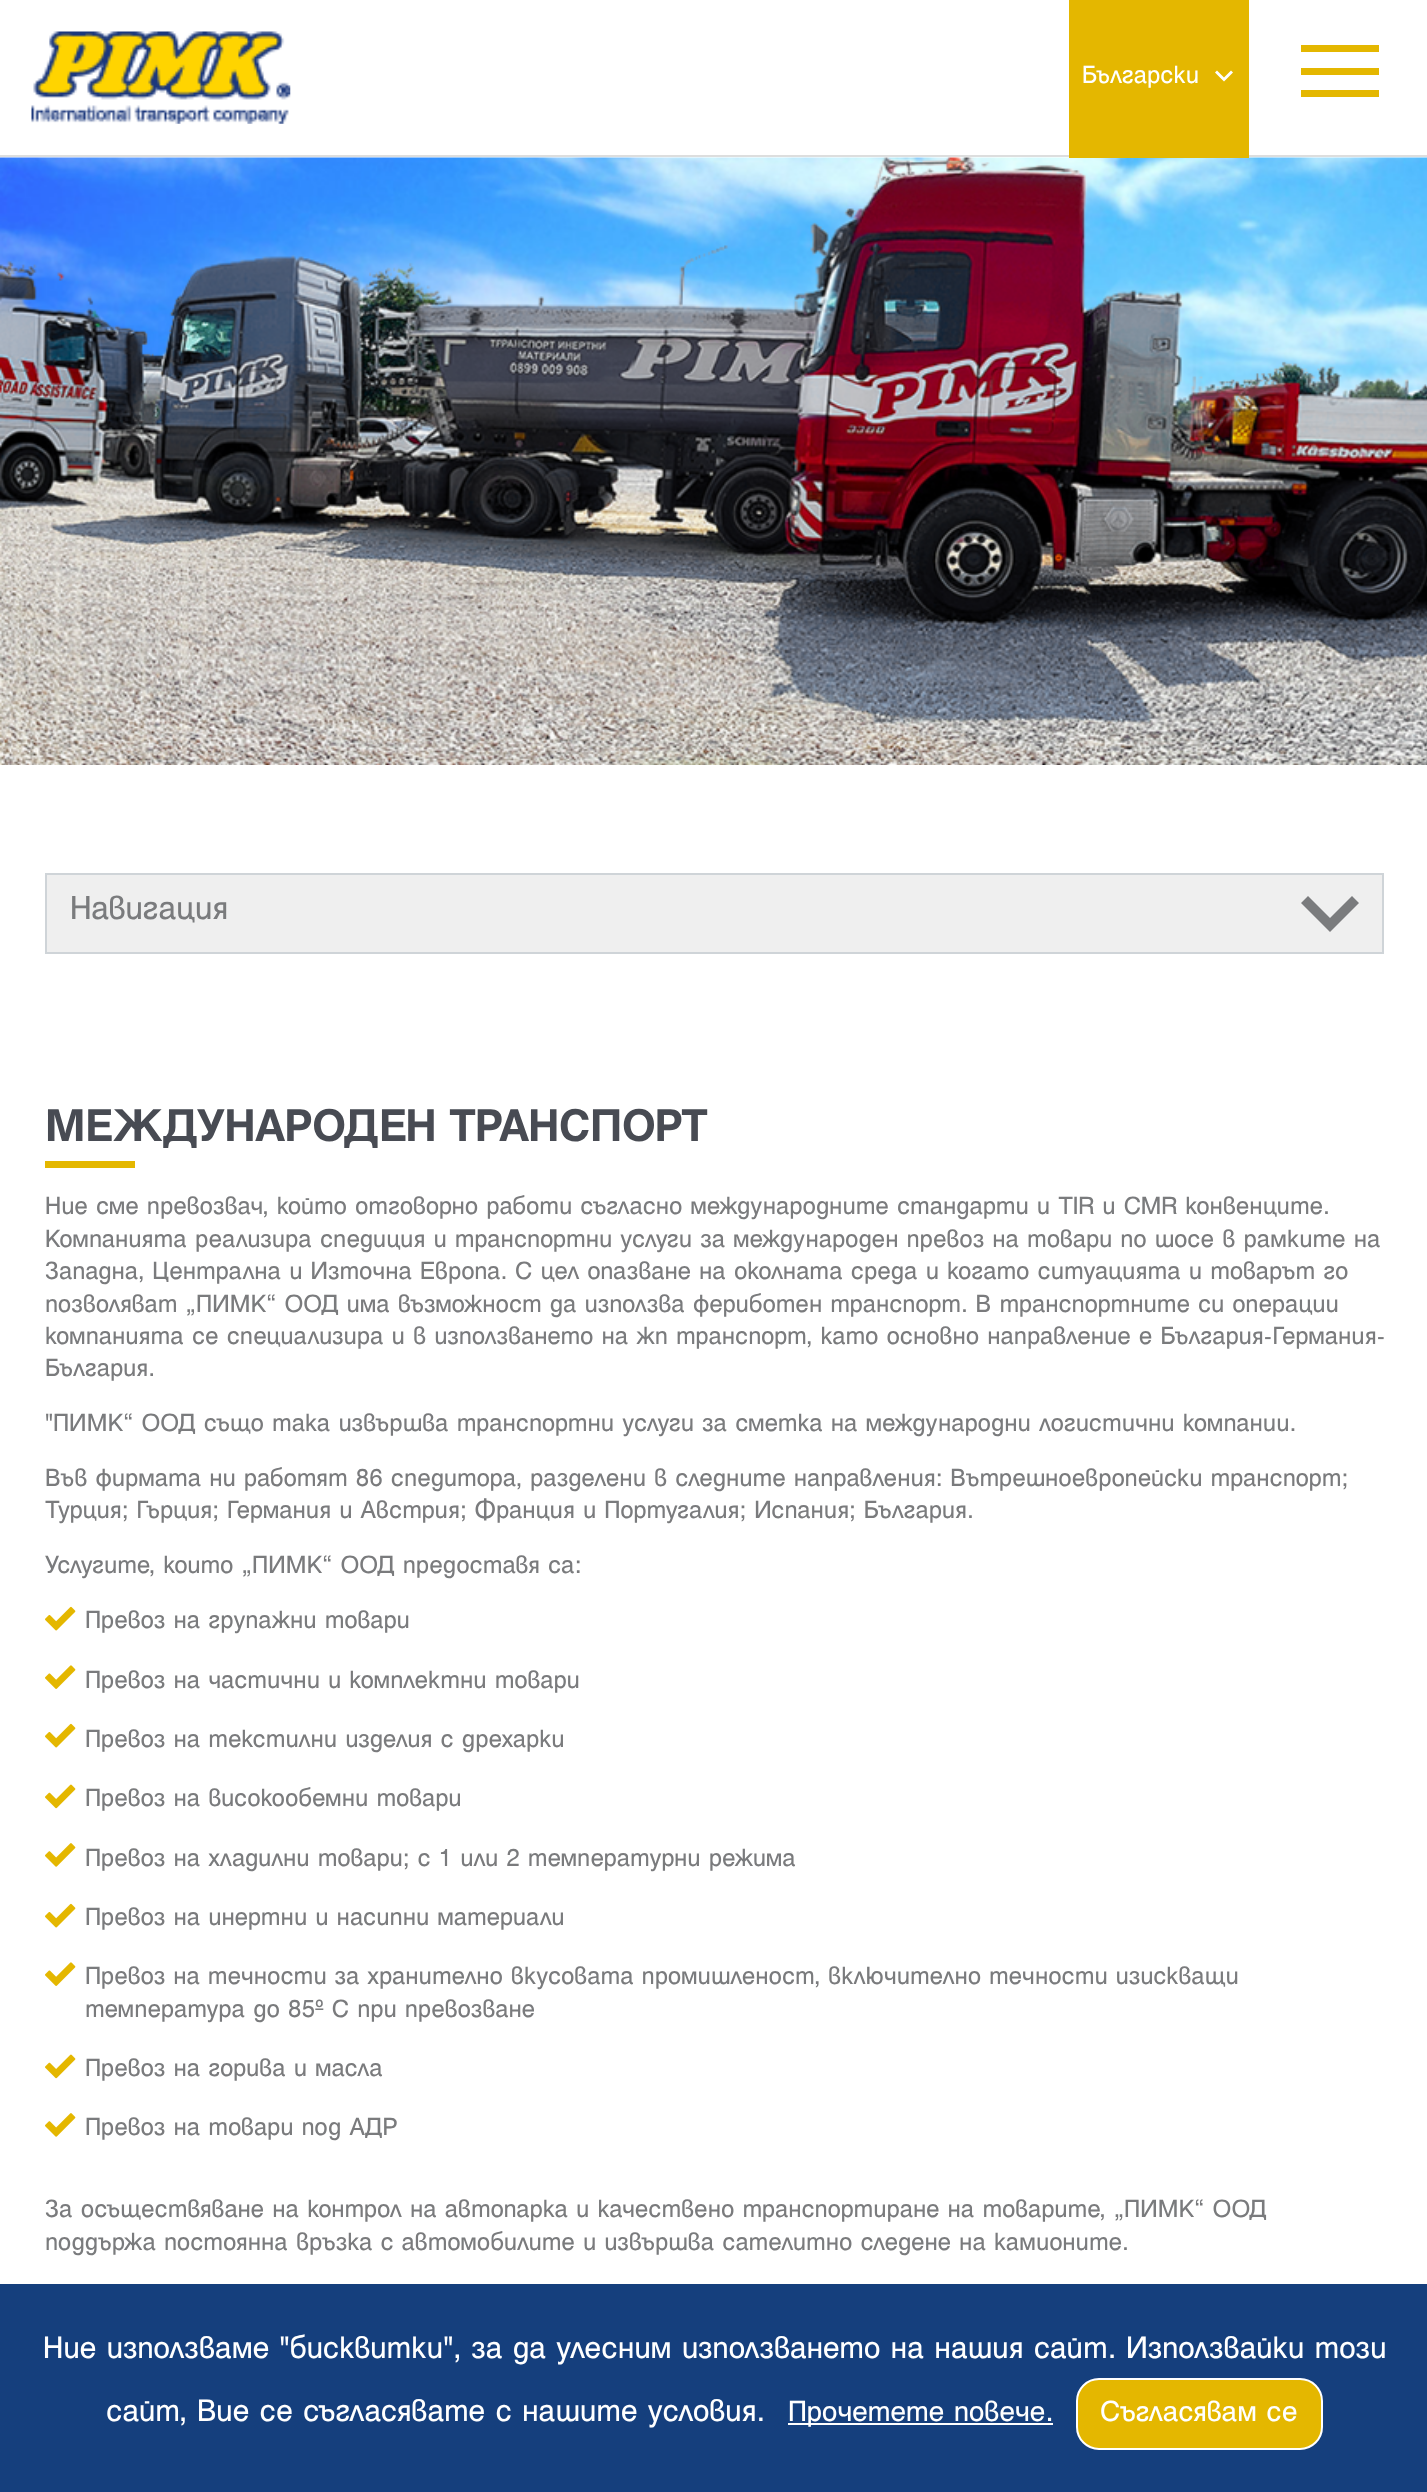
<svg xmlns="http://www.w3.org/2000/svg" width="1427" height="2492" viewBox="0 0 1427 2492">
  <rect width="100%" height="100%" fill="#fff"/>
  <path d="M0 155h1427v2H0z" fill="#dddede"/>
  <image x="31" y="31" width="260" height="93" href="img/1.png"/>
  <image x="0" y="157" width="1427" height="608" href="img/2.png"/>
  <path d="M1069 0h180v158H1069z" fill="#e4b700"/>
  <path d="M1233 72.5L1231 70.5L1224 77.5L1217 70.5L1215 72.5L1224 81.5Z" fill="#fff"/>
  <path d="M1301 68h78v7H1301z" fill="#e4b700"/>
  <path d="M1301 45h78v7H1301z" fill="#e4b700"/>
  <path d="M1301 90h78v7H1301z" fill="#e4b700"/>
  <path d="M46 874h1337v79H46z" fill="#efefef" stroke="#cfd4d8" stroke-width="2"/>
  <path d="M1301 903L1308 896L1330 918L1352 896L1359 903L1330 932Z" fill="#7a7b7d"/>
  <path d="M45 1161h90v7H45z" fill="#e4b700"/>
  <image x="45" y="1606" width="31" height="25" href="img/3.png"/>
  <image x="45" y="1665" width="31" height="24" href="img/4.png"/>
  <image x="45" y="1723" width="31" height="25" href="img/3.png"/>
  <image x="45" y="1784" width="31" height="25" href="img/5.png"/>
  <image x="45" y="1843" width="31" height="24" href="img/6.png"/>
  <image x="45" y="1903" width="31" height="25" href="img/3.png"/>
  <image x="45" y="1962" width="31" height="24" href="img/4.png"/>
  <image x="45" y="2054" width="31" height="25" href="img/5.png"/>
  <image x="45" y="2113" width="31" height="24" href="img/6.png"/>
  <path d="M0 2284h1427v208H0z" fill="#153f7d"/>
  <path d="M788 2423h265v2H788z" fill="#fff"/>
  <rect x="1077" y="2379" width="245" height="70" rx="22" fill="#e4b700" stroke="#fff" stroke-width="2"/>
  <text x="1082" y="83" font-family="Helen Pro" font-size="27" fill="#fff">Български</text>
  <text x="70" y="919" font-family="Helen Pro" font-size="36" fill="#7a7b7d">Навигация</text>
  <text x="45" y="1141" font-family="Helen Pro" font-size="49.5" font-weight="bold" fill="#484b53">МЕЖДУНАРОДЕН ТРАНСПОРТ</text>
  <g font-family="Helen Pro" font-size="27" fill="#7a7b7d">
    <text x="45" y="1214">Ние сме превозвач, който отговорно работи съгласно международните стандарти и TIR и CMR конвенците.</text>
    <text x="45" y="1247">Компанията реализира спедиция и транспортни услуги за международен превоз на товари по шосе в рамките на</text>
    <text x="45" y="1279">Западна, Централна и Източна Европа. С цел опазване на околната среда и когато ситуацията и товарът го</text>
    <text x="45" y="1312" word-spacing="-0.1">позволяват „ПИМК“ ООД има възможност да използва фериботен транспорт. В транспортните си операции</text>
    <text x="45" y="1344">компанията се специализира и в използването на жп транспорт, като основно направление е България-Германия-</text>
    <text x="45" y="1376">България.</text>
    <text x="45" y="1431">"ПИМК“ ООД също така извършва транспортни услуги за сметка на международни логистични компании.</text>
    <text x="45" y="1486" word-spacing="-0.1">Във фирмата ни работят 86 спедитора, разделени в следните направления: Вътрешноевропейски транспорт;</text>
    <text x="45" y="1518">Турция; Гърция; Германия и Австрия; Франция и Португалия; Испания; България.</text>
    <text x="45" y="1573">Услугите, които „ПИМК“ ООД предоставя са:</text>
    <text x="85" y="1628">Превоз на групажни товари</text>
    <text x="85" y="1688">Превоз на частични и комплектни товари</text>
    <text x="85" y="1747">Превоз на текстилни изделия с дрехарки</text>
    <text x="85" y="1806">Превоз на високообемни товари</text>
    <text x="85" y="1866">Превоз на хладилни товари; с 1 или 2 температурни режима</text>
    <text x="85" y="1925">Превоз на инертни и насипни материали</text>
    <text x="85" y="1984" word-spacing="-0.25">Превоз на течности за хранително вкусовата промишленост, включително течности изискващи</text>
    <text x="85" y="2017">температура до 85º С при превозване</text>
    <text x="85" y="2076">Превоз на горива и масла</text>
    <text x="85" y="2135">Превоз на товари под АДР</text>
    <text x="45" y="2217">За осъществяване на контрол на автопарка и качествено транспортиране на товарите, „ПИМК“ ООД</text>
    <text x="45" y="2250" word-spacing="-0.1">поддържа постоянна връзка с автомобилите и извършва сателитно следене на камионите.</text>
  </g>
  <g font-family="Helen Pro" font-size="33.75" fill="#fff">
    <text x="43" y="2358">Ние използваме "бисквитки", за да улесним използването на нашия сайт. Използвайки този</text>
    <text x="106" y="2421">сайт, Вие се съгласявате с нашите условия.</text>
  </g>
  <g font-family="Helen Pro" font-size="31.5" fill="#fff">
    <text x="788" y="2421">Прочетете повече.</text>
    <text x="1100" y="2421">Съгласявам се</text>
  </g>
</svg>
